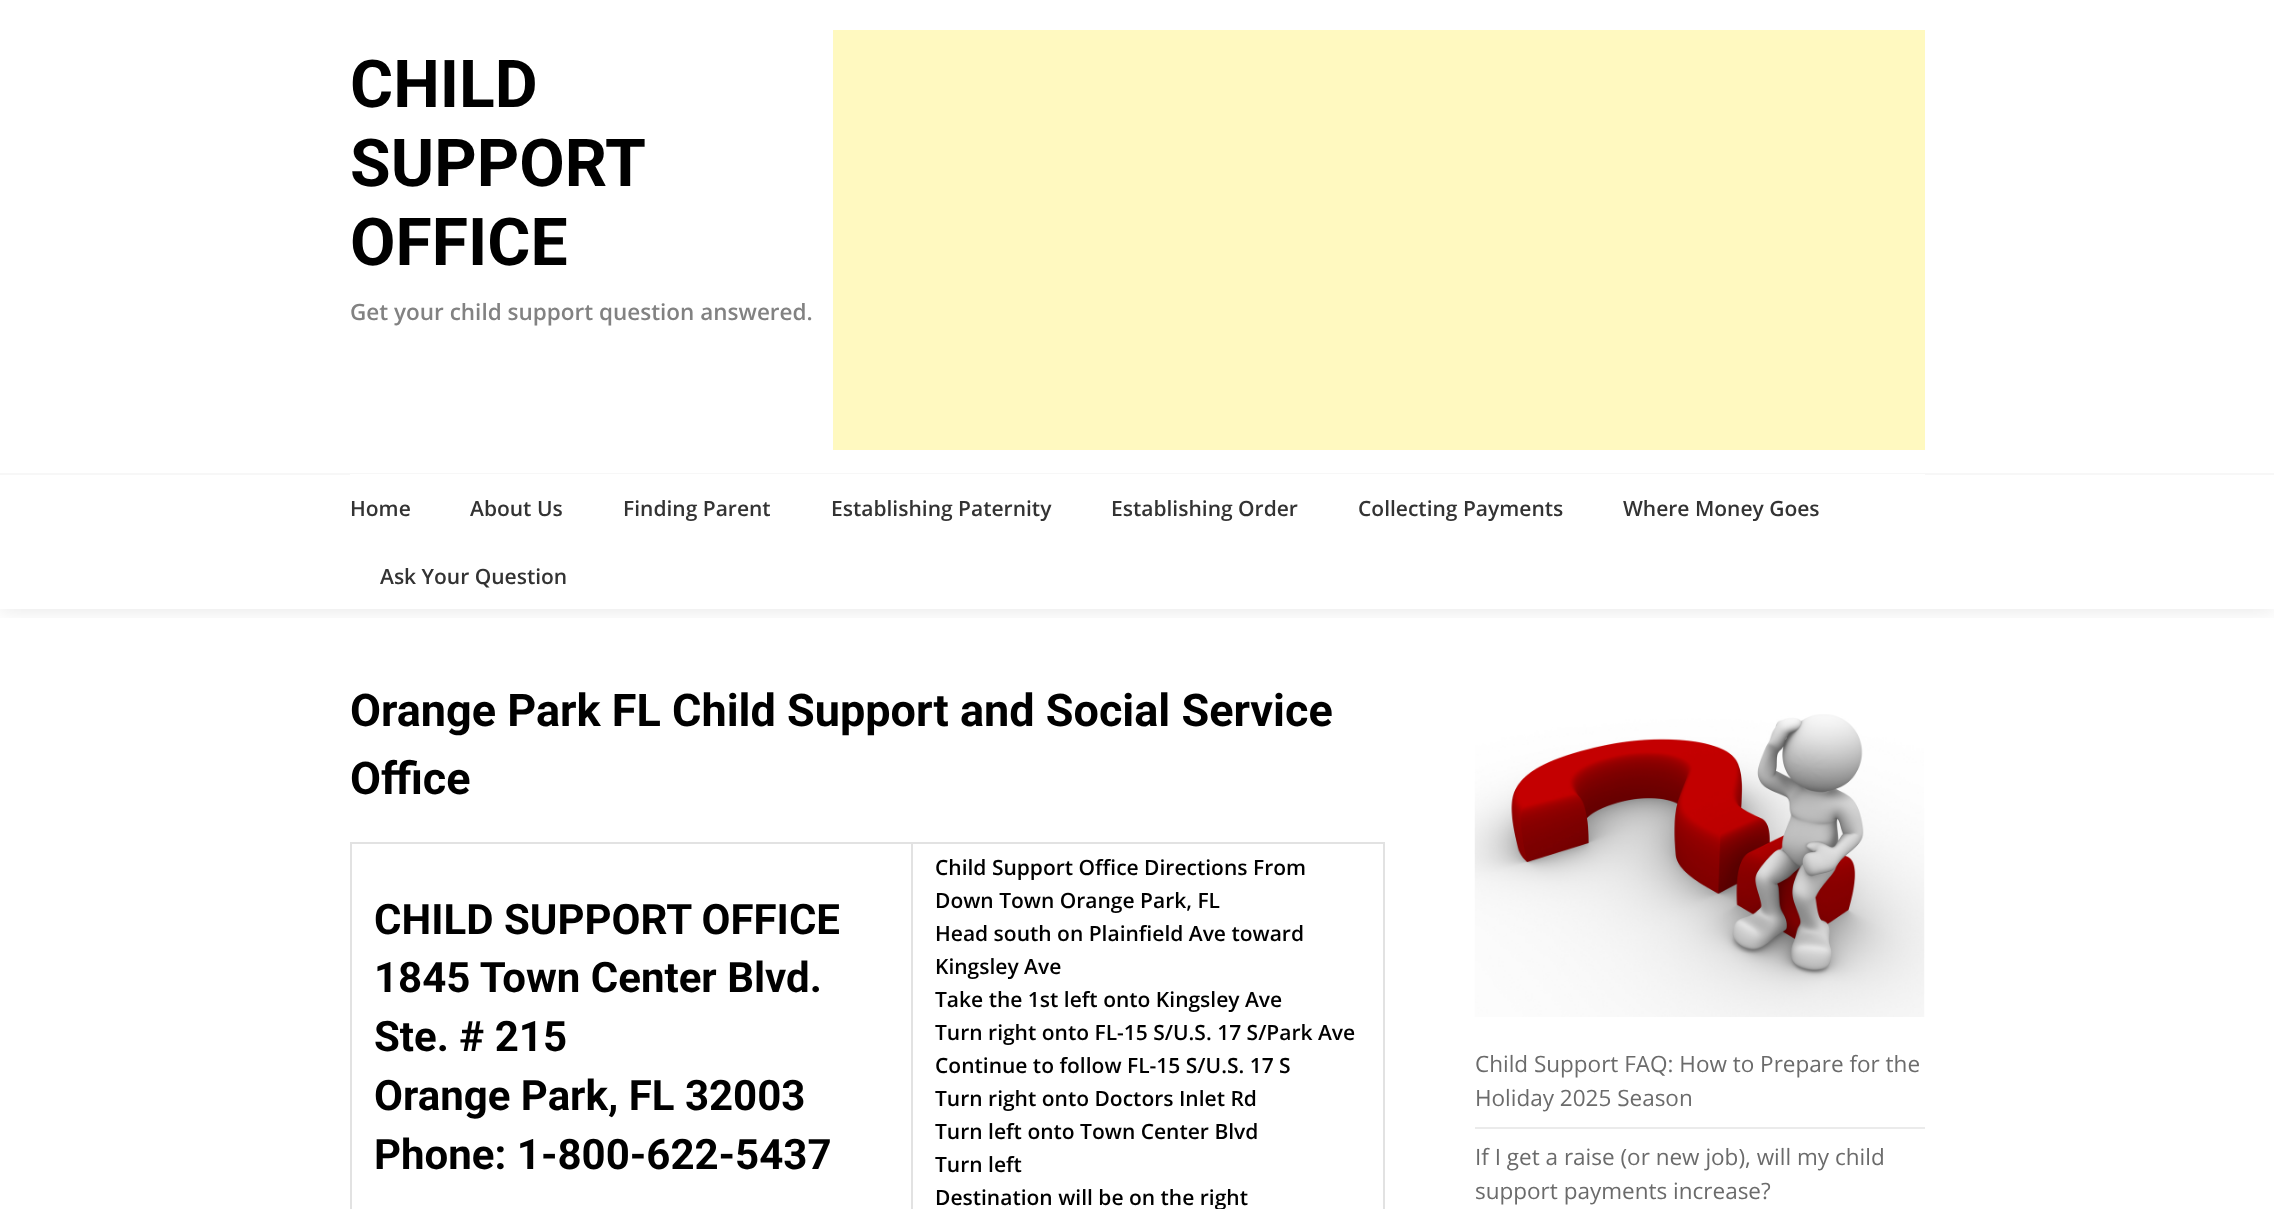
<svg xmlns="http://www.w3.org/2000/svg" width="2274" height="1209" viewBox="0 0 2274 1209">
  <defs>
    <clipPath id="clip1"><path d="M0 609h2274v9H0z"/></clipPath>
  </defs>
  <rect width="100%" height="100%" fill="#fff"/>
  <g clip-path="url(#clip1)">
    <path d="M0 0h2274v609H0z" fill="#0000001a" filter="blur(11px)"/>
  </g>
  <path d="M833 30h1092v420H833z" fill="#fff9c0"/>
  <path d="M0 473h2274v2H0z" fill="#f7f7f7"/>
  <path d="M350 474h1575v1H350z" fill="#fff"/>
  <path d="M911 842h474v2H911z" fill="#e2e2e2"/>
  <path d="M911 842h2v367H911z" fill="#e2e2e2"/>
  <path d="M350 842h562v2H350z" fill="#e2e2e2"/>
  <path d="M350 842h2v367H350z" fill="#e2e2e2"/>
  <path d="M1383 842h2v367H1383z" fill="#e2e2e2"/>
  <image x="1474" y="714" width="451" height="303" href="img/1.png"/>
  <path d="M1475 1127h450v2H1475z" fill="#ebebeb"/>
  <g font-family="Roboto" font-size="66" font-weight="bold" fill="#000">
    <text x="350" y="107">CHILD</text>
    <text x="350" y="186">SUPPORT</text>
    <text x="350" y="265">OFFICE</text>
  </g>
  <text x="350" y="320" font-family="Open Sans" font-size="22.5" font-weight="600" fill="#828282">Get your child support question answered.</text>
  <g font-family="Open Sans" font-size="21" font-weight="600" fill="#333">
    <text x="350" y="516">Home</text>
    <text x="470" y="516">About Us</text>
    <text x="623" y="516">Finding Parent</text>
    <text x="831" y="516">Establishing Paternity</text>
    <text x="1111" y="516">Establishing Order</text>
    <text x="1358" y="516">Collecting Payments</text>
    <text x="1623" y="516">Where Money Goes</text>
    <text x="380" y="584">Ask Your Question</text>
  </g>
  <g font-family="Roboto" font-size="45" font-weight="bold" fill="#000">
    <text x="350" y="726">Orange Park FL Child Support and Social Service</text>
    <text x="350" y="794">Office</text>
  </g>
  <g font-family="Roboto" font-size="42" font-weight="bold" fill="#000">
    <text x="374" y="934">CHILD SUPPORT OFFICE</text>
    <text x="374" y="992">1845 Town Center Blvd.</text>
    <text x="374" y="1051">Ste. # 215</text>
    <text x="374" y="1110">Orange Park, FL 32003</text>
    <text x="374" y="1169">Phone: 1-800-622-5437</text>
  </g>
  <g font-family="Open Sans" font-size="21" font-weight="600" fill="#000">
    <text x="935" y="875">Child Support Office Directions From</text>
    <text x="935" y="908">Down Town Orange Park, FL</text>
    <text x="935" y="941">Head south on Plainfield Ave toward</text>
    <text x="935" y="974">Kingsley Ave</text>
    <text x="935" y="1007">Take the 1st left onto Kingsley Ave</text>
    <text x="935" y="1040">Turn right onto FL-15 S/U.S. 17 S/Park Ave</text>
    <text x="935" y="1073">Continue to follow FL-15 S/U.S. 17 S</text>
    <text x="935" y="1106">Turn right onto Doctors Inlet Rd</text>
    <text x="935" y="1139">Turn left onto Town Center Blvd</text>
    <text x="935" y="1172">Turn left</text>
    <text x="935" y="1205">Destination will be on the right</text>
  </g>
  <g font-family="Open Sans" font-size="22.5" fill="#6b6b6b">
    <text x="1475" y="1072">Child Support FAQ: How to Prepare for the</text>
    <text x="1475" y="1106">Holiday 2025 Season</text>
    <text x="1475" y="1165">If I get a raise (or new job), will my child</text>
    <text x="1475" y="1199">support payments increase?</text>
  </g>
</svg>
